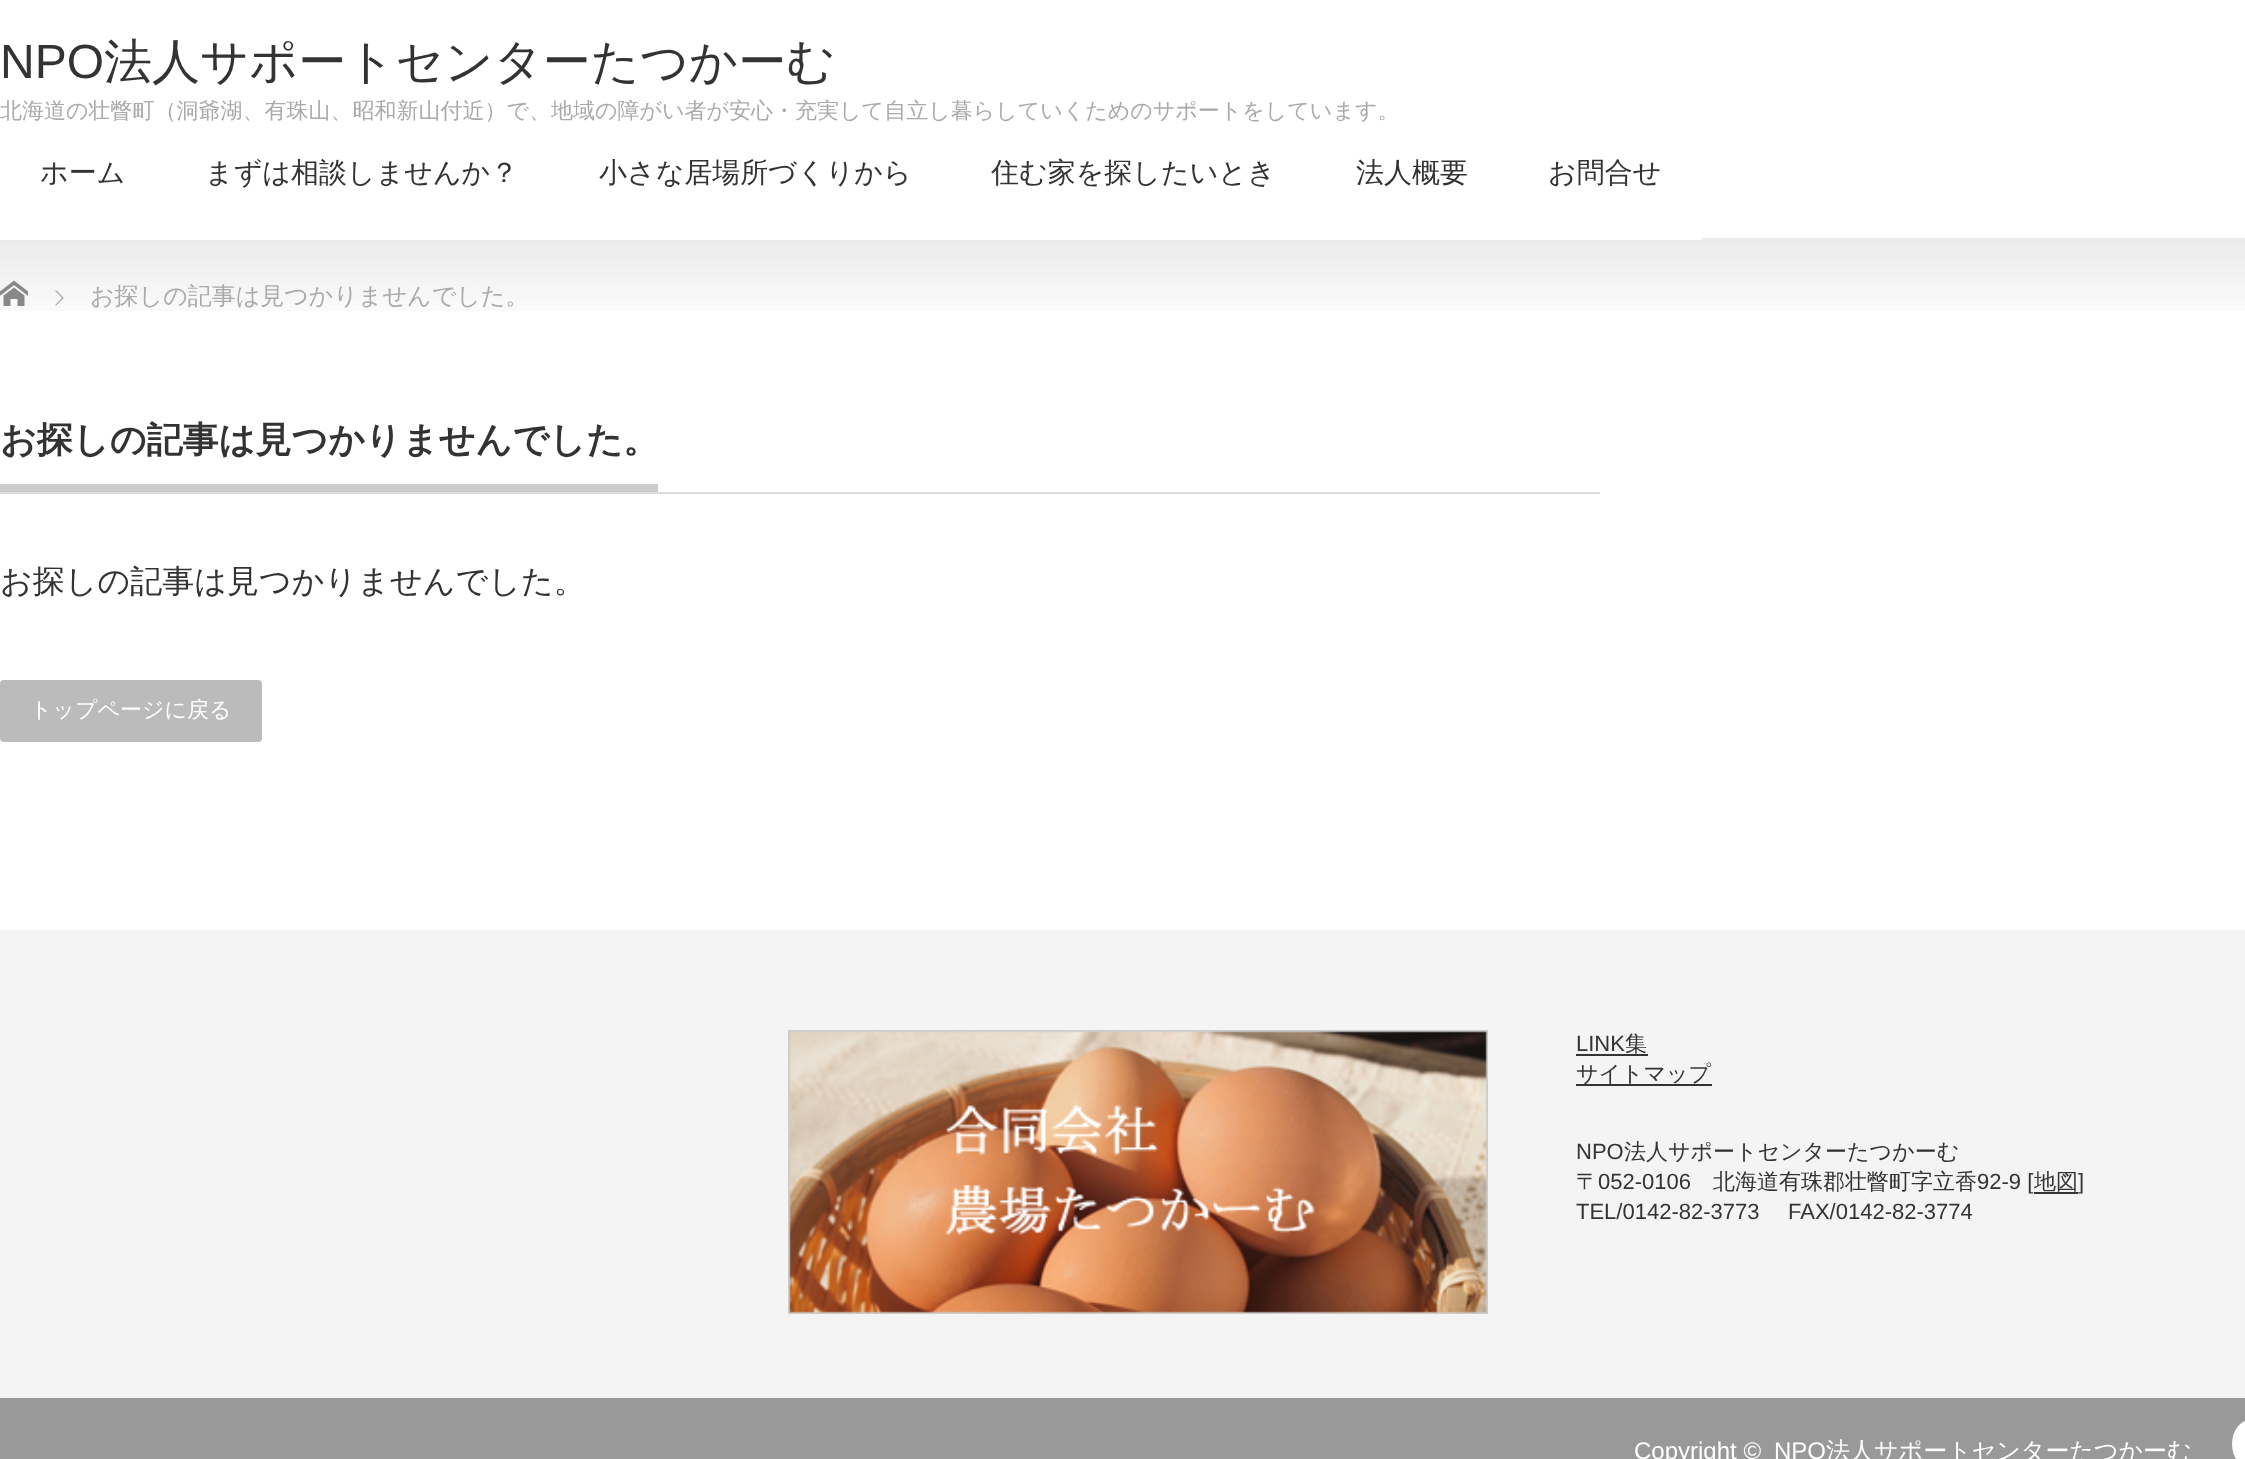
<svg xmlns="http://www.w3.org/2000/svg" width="2245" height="1459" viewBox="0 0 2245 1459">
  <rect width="100%" height="100%" fill="#fff"/>
  <image x="0" y="238" width="2245" height="73" href="img/1.png"/>
  <path d="M0 238h1702v2H0z" fill="#fff"/>
  <image x="0" y="280" width="28" height="26" href="img/2.png"/>
  <image x="55" y="290" width="9" height="16" href="img/3.png"/>
  <path d="M0 492h1600v2H0z" fill="#ddd"/>
  <path d="M0 484h658v8H0z" fill="#ccc"/>
  <rect y="680" width="262" height="62" rx="4" fill="#bbb"/>
  <path d="M0 930h2245v468H0z" fill="#f4f4f4"/>
  <image x="788" y="1030" width="700" height="284" href="img/4.png"/>
  <path d="M1576 1054h72v2H1576z" fill="#333"/>
  <path d="M1576 1084h136v2H1576z" fill="#333"/>
  <path d="M2034 1192h44v2H2034z" fill="#333"/>
  <path d="M0 1398h2245v61H0z" fill="#999"/>
  <rect x="2232" y="1420" width="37" height="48" rx="24" fill="#fff"/>
  <text x="0" y="78" font-family="Liberation Sans" font-size="48" fill="#333">NPO</text>
  <text x="104" y="78" font-family="WenQuanYi Zen Hei" font-size="48" font-weight="500" fill="#333">法人サポートセンターたつかーむ</text>
  <text x="0" y="118" font-family="WenQuanYi Zen Hei" font-size="22" font-weight="500" fill="#aaa">北海道の壮瞥町（洞爺湖、有珠山、昭和新山付近）で、地域の障がい者が安心・充実して自立し暮らしていくためのサポートをしています。</text>
  <g font-family="WenQuanYi Zen Hei" font-size="28" font-weight="500" fill="#333">
    <text x="40" y="182">ホーム</text>
    <text x="205" y="182">まずは相談しませんか？</text>
    <text x="599" y="182">小さな居場所づくりから</text>
    <text x="991" y="182">住む家を探したいとき</text>
    <text x="1356" y="182">法人概要</text>
    <text x="1548" y="182">お問合せ</text>
  </g>
  <text x="90" y="304" font-family="WenQuanYi Zen Hei" font-size="24" font-weight="500" fill="#aaa">お探しの記事は見つかりませんでした。</text>
  <text x="0" y="452" font-family="WenQuanYi Zen Hei" font-size="36" font-weight="bold" fill="#333">お探しの記事は見つかりませんでした。</text>
  <text x="0" y="592" font-family="WenQuanYi Zen Hei" font-size="32" font-weight="500" fill="#333">お探しの記事は見つかりませんでした。</text>
  <text x="30" y="717" font-family="WenQuanYi Zen Hei" font-size="22" font-weight="500" fill="#fff">トップページに戻る</text>
  <text x="1576" y="1051" font-family="Liberation Sans" font-size="22" fill="#333">LINK</text>
  <g font-family="WenQuanYi Zen Hei" font-size="22" font-weight="500" fill="#333">
    <text x="1625" y="1051">集</text>
    <text x="1576" y="1081">サイトマップ</text>
  </g>
  <text x="1576" y="1159" font-family="Liberation Sans" font-size="22" fill="#333">NPO</text>
  <g font-family="WenQuanYi Zen Hei" font-size="22" font-weight="500" fill="#333">
    <text x="1624" y="1159">法人サポートセンターたつかーむ</text>
    <text x="1576" y="1189">〒</text>
  </g>
  <text x="1598" y="1189" font-family="Liberation Sans" font-size="22" fill="#333">052-0106</text>
  <text x="1713" y="1189" font-family="WenQuanYi Zen Hei" font-size="22" font-weight="500" fill="#333">北海道有珠郡壮瞥町字立香</text>
  <text x="1977" y="1189" font-family="Liberation Sans" font-size="22" fill="#333">92-9 [</text>
  <text x="2034" y="1189" font-family="WenQuanYi Zen Hei" font-size="22" font-weight="500" fill="#333">地図</text>
  <g font-family="Liberation Sans" font-size="22" fill="#333">
    <text x="2078" y="1189">]</text>
    <text x="1576" y="1219">TEL/0142-82-3773</text>
    <text x="1788" y="1219">FAX/0142-82-3774</text>
  </g>
  <g font-family="Liberation Sans" font-size="24" fill="#fff">
    <text x="1634" y="1459">Copyright ©</text>
    <text x="1774" y="1459">NPO</text>
  </g>
  <text x="1826" y="1459" font-family="WenQuanYi Zen Hei" font-size="24" font-weight="500" fill="#fff">法人サポートセンターたつかーむ</text>
</svg>
